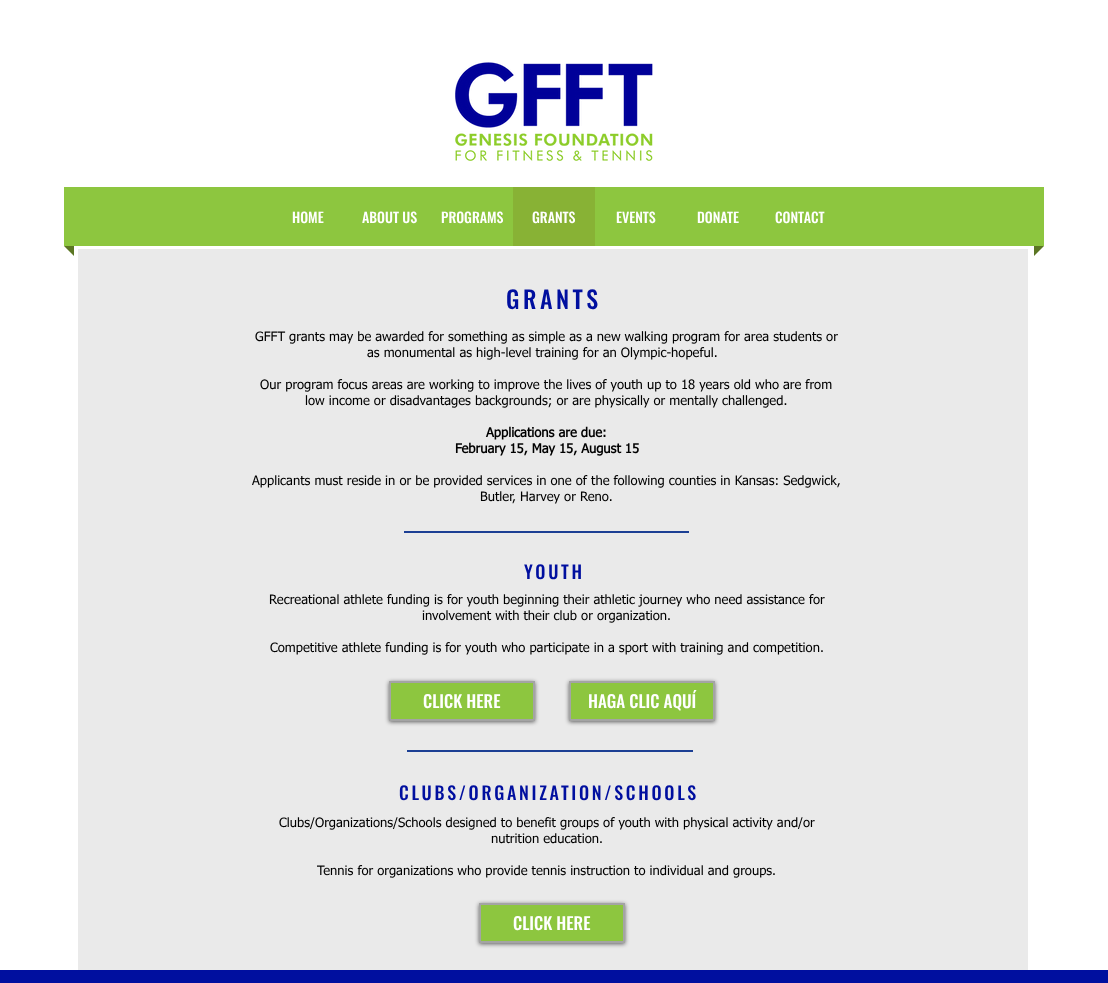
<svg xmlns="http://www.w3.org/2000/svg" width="1108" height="983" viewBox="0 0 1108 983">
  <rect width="100%" height="100%" fill="#fff"/>
  <image x="455" y="62" width="198" height="99" href="img/1.png"/>
  <path d="M64 187h980v59H64z" fill="#8dc63f"/>
  <path d="M513 187h82v59H513z" fill="#88b235"/>
  <path d="M64 246H74V256Z" fill="#5b7623"/>
  <path d="M1034 246H1044L1034 256Z" fill="#5b7623"/>
  <path d="M78 249h950v721H78z" fill="#eaeaea"/>
  <path d="M404 531h285v2H404z" fill="#1c3f94"/>
  <path d="M389 682h146v40H389z" fill="#00000099" filter="blur(2px)"/>
  <path d="M390 682h144v38H390z" fill="#8dc63f" stroke="#a4a4a4" stroke-width="2"/>
  <path d="M569 682h146v40H569z" fill="#00000099" filter="blur(2px)"/>
  <path d="M570 682h144v38H570z" fill="#8dc63f" stroke="#a4a4a4" stroke-width="2"/>
  <path d="M407 750h286v2H407z" fill="#1c3f94"/>
  <path d="M479 904h146v40H479z" fill="#00000099" filter="blur(2px)"/>
  <path d="M480 904h144v38H480z" fill="#8dc63f" stroke="#a4a4a4" stroke-width="2"/>
  <path d="M0 970h1108v13H0z" fill="#000f9f"/>
  <g font-family="Oswald" font-size="14" font-weight="500" fill="#fff">
    <text x="292" y="223">HOME</text>
    <text x="362" y="223">ABOUT US</text>
    <text x="441" y="223">PROGRAMS</text>
    <text x="532" y="223">GRANTS</text>
    <text x="616" y="223">EVENTS</text>
    <text x="697" y="223">DONATE</text>
    <text x="775" y="223">CONTACT</text>
  </g>
  <text x="506" y="309" font-family="Oswald" font-size="24" font-weight="500" letter-spacing="3.5" fill="#000f9f">GRANTS</text>
  <g font-family="tahoma" font-size="13" fill="#000">
    <text x="255" y="341">GFFT grants may be awarded for something as simple as a new walking program for area students or</text>
    <text x="367" y="357">as monumental as high-level training for an Olympic-hopeful.</text>
    <text x="260" y="389">Our program focus areas are working to improve the lives of youth up to 18 years old who are from</text>
    <text x="305" y="405">low income or disadvantages backgrounds; or are physically or mentally challenged.</text>
  </g>
  <g font-family="tahoma" font-size="13" font-weight="bold" fill="#000">
    <text x="486" y="437">Applications are due:</text>
    <text x="455" y="453">February 15, May 15, August 15</text>
  </g>
  <g font-family="tahoma" font-size="13" fill="#000">
    <text x="252" y="485">Applicants must reside in or be provided services in one of the following counties in Kansas: Sedgwick,</text>
    <text x="480" y="501">Butler, Harvey or Reno.</text>
  </g>
  <text x="524" y="579" font-family="Oswald" font-size="18" font-weight="500" letter-spacing="2.7" fill="#000f9f">YOUTH</text>
  <g font-family="tahoma" font-size="13" fill="#000">
    <text x="269" y="604">Recreational athlete funding is for youth beginning their athletic journey who need assistance for</text>
    <text x="422" y="620">involvement with their club or organization.</text>
    <text x="270" y="652">Competitive athlete funding is for youth who participate in a sport with training and competition.</text>
  </g>
  <g font-family="Oswald" font-size="17" font-weight="500" fill="#fff">
    <text x="423" y="708">CLICK HERE</text>
    <text x="588" y="708">HAGA CLIC AQUÍ</text>
  </g>
  <text x="399" y="800" font-family="Oswald" font-size="18" font-weight="500" letter-spacing="2.7" fill="#000f9f">CLUBS/ORGANIZATION/SCHOOLS</text>
  <g font-family="tahoma" font-size="13" fill="#000">
    <text x="279" y="827">Clubs/Organizations/Schools designed to benefit groups of youth with physical activity and/or</text>
    <text x="491" y="843">nutrition education.</text>
    <text x="317" y="875">Tennis for organizations who provide tennis instruction to individual and groups.</text>
  </g>
  <text x="513" y="930" font-family="Oswald" font-size="17" font-weight="500" fill="#fff">CLICK HERE</text>
</svg>
